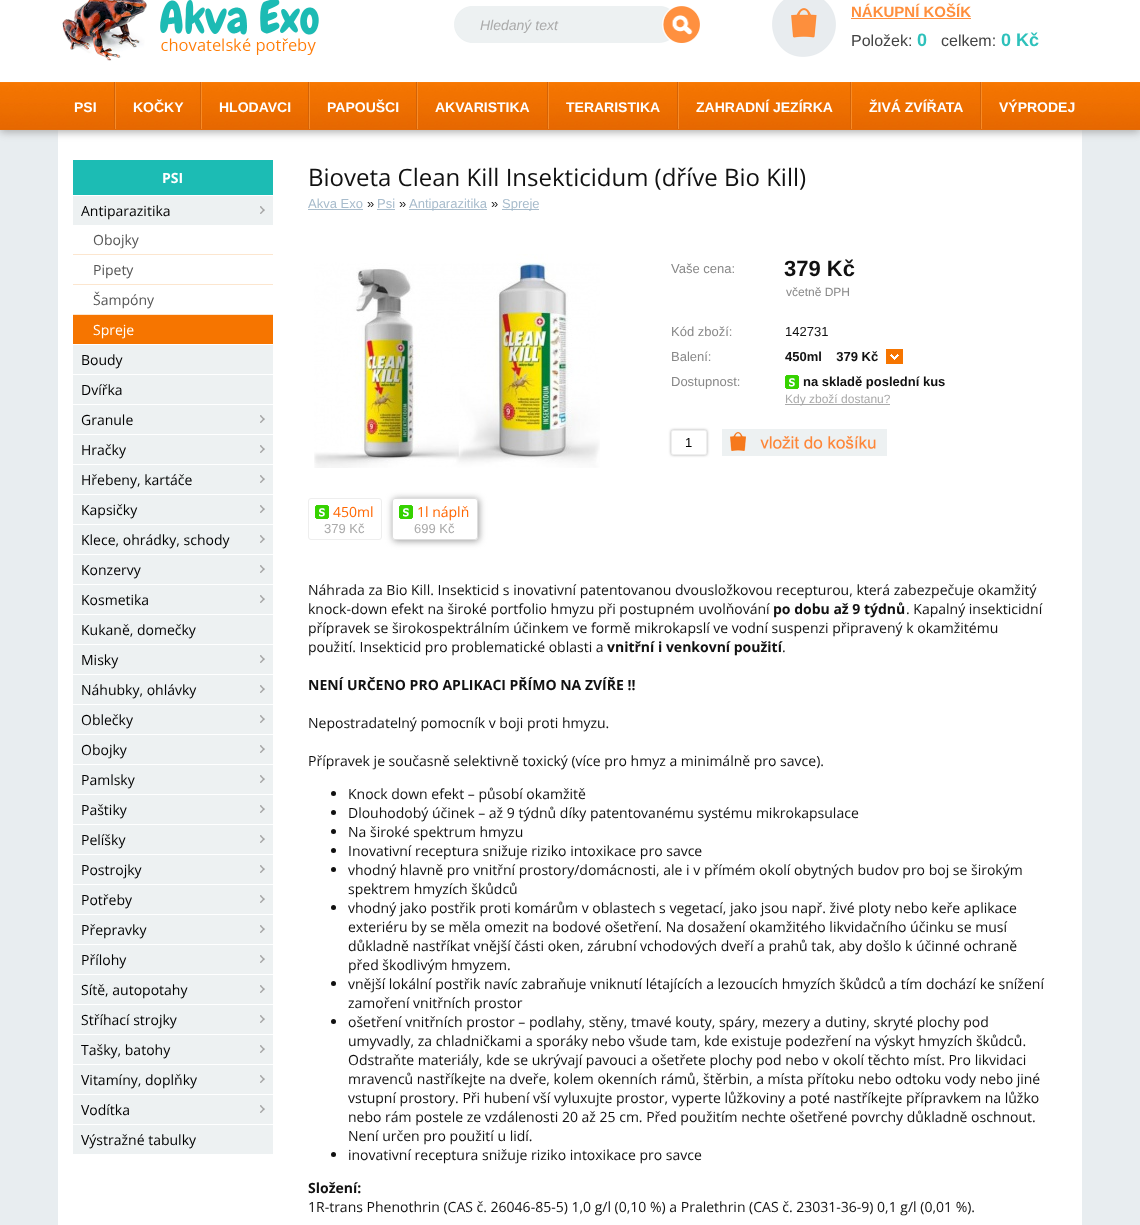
<svg xmlns="http://www.w3.org/2000/svg" width="1140" height="1225" viewBox="0 0 1140 1225">
  <defs>
    <clipPath id="clip1"><path d="M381 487H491V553H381ZM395 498H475C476.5 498 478 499.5 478 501V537C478 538.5 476.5 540 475 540H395C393.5 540 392 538.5 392 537V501C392 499.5 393.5 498 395 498Z" clip-rule="evenodd"/></clipPath>
  </defs>
  <rect width="100%" height="100%" fill="#e8edf0"/>
  <path d="M58 130h1024v1095H58z" fill="#fff"/>
  <path d="M0 -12h1140v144H0z" fill="#aaa" filter="blur(4px)"/>
  <image x="0" y="0" width="1140" height="130" href="img/1.png"/>
  <image x="62" y="0" width="257" height="61" href="img/2.png"/>
  <image x="454" y="6" width="16" height="37" href="img/3.png"/>
  <path d="M470 6h190v37H470z" fill="#edf1f2"/>
  <image x="660" y="6" width="40" height="37" href="img/4.png"/>
  <image x="772" y="0" width="64" height="57" href="img/5.png"/>
  <path d="M851 18h120v1H851z" fill="#ff8f3d"/>
  <image x="114" y="82" width="3" height="47" href="img/6.png"/>
  <image x="200" y="82" width="3" height="47" href="img/6.png"/>
  <image x="308" y="82" width="3" height="47" href="img/6.png"/>
  <image x="416" y="82" width="3" height="47" href="img/6.png"/>
  <image x="547" y="82" width="3" height="47" href="img/6.png"/>
  <image x="677" y="82" width="3" height="47" href="img/6.png"/>
  <image x="850" y="82" width="3" height="47" href="img/6.png"/>
  <image x="980" y="82" width="3" height="47" href="img/6.png"/>
  <path d="M73 160h200v35H73z" fill="#1cbcb4"/>
  <path d="M73 196h200v29H73z" fill="#edf1f2"/>
  <image x="260" y="206" width="5" height="8" href="img/7.png"/>
  <path d="M73 254h200v1H73z" fill="#fce6cf"/>
  <path d="M73 284h200v1H73z" fill="#fce6cf"/>
  <path d="M73 315h200v29H73z" fill="#f67500"/>
  <path d="M73 314h200v1H73z" fill="#fce6cf"/>
  <path d="M73 345h200v29H73z" fill="#edf1f2"/>
  <path d="M73 375h200v29H73z" fill="#edf1f2"/>
  <path d="M73 405h200v29H73z" fill="#edf1f2"/>
  <image x="260" y="415" width="5" height="8" href="img/7.png"/>
  <path d="M73 435h200v29H73z" fill="#edf1f2"/>
  <image x="260" y="445" width="5" height="8" href="img/7.png"/>
  <path d="M73 465h200v29H73z" fill="#edf1f2"/>
  <image x="260" y="475" width="5" height="8" href="img/7.png"/>
  <path d="M73 495h200v29H73z" fill="#edf1f2"/>
  <image x="260" y="505" width="5" height="8" href="img/7.png"/>
  <path d="M73 525h200v29H73z" fill="#edf1f2"/>
  <image x="260" y="535" width="5" height="8" href="img/7.png"/>
  <path d="M73 555h200v29H73z" fill="#edf1f2"/>
  <image x="260" y="565" width="5" height="8" href="img/7.png"/>
  <path d="M73 585h200v29H73z" fill="#edf1f2"/>
  <image x="260" y="595" width="5" height="8" href="img/7.png"/>
  <path d="M73 615h200v29H73z" fill="#edf1f2"/>
  <path d="M73 645h200v29H73z" fill="#edf1f2"/>
  <image x="260" y="655" width="5" height="8" href="img/7.png"/>
  <path d="M73 675h200v29H73z" fill="#edf1f2"/>
  <image x="260" y="685" width="5" height="8" href="img/7.png"/>
  <path d="M73 705h200v29H73z" fill="#edf1f2"/>
  <image x="260" y="715" width="5" height="8" href="img/7.png"/>
  <path d="M73 735h200v29H73z" fill="#edf1f2"/>
  <image x="260" y="745" width="5" height="8" href="img/7.png"/>
  <path d="M73 765h200v29H73z" fill="#edf1f2"/>
  <image x="260" y="775" width="5" height="8" href="img/7.png"/>
  <path d="M73 795h200v29H73z" fill="#edf1f2"/>
  <image x="260" y="805" width="5" height="8" href="img/7.png"/>
  <path d="M73 825h200v29H73z" fill="#edf1f2"/>
  <image x="260" y="835" width="5" height="8" href="img/7.png"/>
  <path d="M73 855h200v29H73z" fill="#edf1f2"/>
  <image x="260" y="865" width="5" height="8" href="img/7.png"/>
  <path d="M73 885h200v29H73z" fill="#edf1f2"/>
  <image x="260" y="895" width="5" height="8" href="img/7.png"/>
  <path d="M73 915h200v29H73z" fill="#edf1f2"/>
  <image x="260" y="925" width="5" height="8" href="img/7.png"/>
  <path d="M73 945h200v29H73z" fill="#edf1f2"/>
  <image x="260" y="955" width="5" height="8" href="img/7.png"/>
  <path d="M73 975h200v29H73z" fill="#edf1f2"/>
  <image x="260" y="985" width="5" height="8" href="img/7.png"/>
  <path d="M73 1005h200v29H73z" fill="#edf1f2"/>
  <image x="260" y="1015" width="5" height="8" href="img/7.png"/>
  <path d="M73 1035h200v29H73z" fill="#edf1f2"/>
  <image x="260" y="1045" width="5" height="8" href="img/7.png"/>
  <path d="M73 1065h200v29H73z" fill="#edf1f2"/>
  <image x="260" y="1075" width="5" height="8" href="img/7.png"/>
  <path d="M73 1095h200v29H73z" fill="#edf1f2"/>
  <image x="260" y="1105" width="5" height="8" href="img/7.png"/>
  <path d="M73 1125h200v29H73z" fill="#edf1f2"/>
  <path d="M308 209h55v1H308z" fill="#a8bccc"/>
  <path d="M377 209h18v1H377z" fill="#a8bccc"/>
  <path d="M409 209h78v1H409z" fill="#a8bccc"/>
  <path d="M502 209h37v1H502z" fill="#a8bccc"/>
  <image x="314" y="254" width="286" height="214" href="img/8.png"/>
  <image x="886" y="349" width="17" height="15" href="img/9.png"/>
  <image x="785" y="375" width="14" height="14" href="img/10.png"/>
  <path d="M785 404h105v1H785z" fill="#aaa"/>
  <rect x="671" y="430" width="36" height="25" rx="2" fill="#aaa" filter="blur(1.5px)"/>
  <rect x="671.5" y="430.5" width="35" height="24" rx="1.5" fill="#fff" stroke="#eee"/>
  <image x="722" y="429" width="165" height="27" href="img/11.png"/>
  <rect x="308.5" y="498.5" width="73" height="41" rx="2.5" fill="none" stroke="#eee"/>
  <image x="315" y="505" width="14" height="14" href="img/10.png"/>
  <g clip-path="url(#clip1)">
    <rect x="393" y="499" width="86" height="42" rx="3" fill="#999" filter="blur(3.5px)"/>
  </g>
  <rect x="392.5" y="498.5" width="85" height="41" rx="2.5" fill="none" stroke="#ddd"/>
  <image x="399" y="505" width="14" height="14" href="img/10.png"/>
  <circle cx="333.5" cy="793.5" r="2.5" fill="#111"/>
  <circle cx="333.5" cy="812.5" r="2.5" fill="#111"/>
  <circle cx="333.5" cy="831.5" r="2.5" fill="#111"/>
  <circle cx="333.5" cy="850.5" r="2.5" fill="#111"/>
  <circle cx="333.5" cy="869.5" r="2.5" fill="#111"/>
  <circle cx="333.5" cy="907.5" r="2.5" fill="#111"/>
  <circle cx="333.5" cy="983.5" r="2.5" fill="#111"/>
  <circle cx="333.5" cy="1021.5" r="2.5" fill="#111"/>
  <circle cx="333.5" cy="1154.5" r="2.5" fill="#111"/>
  <text x="480" y="30" font-family="Liberation Sans" font-size="14" font-style="italic" fill="#aaa">Hledaný text</text>
  <text x="851" y="17" font-family="Liberation Sans" font-size="15" font-weight="bold" fill="#ff8f3d">NÁKUPNÍ KOŠÍK</text>
  <text x="851" y="46" font-family="Liberation Sans" font-size="16" fill="#434343">Položek:</text>
  <text x="917" y="46" font-family="Liberation Sans" font-size="18" font-weight="bold" fill="#2ec1bb">0</text>
  <text x="941" y="46" font-family="Liberation Sans" font-size="16" fill="#434343">celkem:</text>
  <text x="1001" y="46" font-family="Liberation Sans" font-size="18" font-weight="bold" fill="#2ec1bb">0 Kč</text>
  <g font-family="Liberation Sans" font-size="14" font-weight="bold" fill="#fff">
    <text x="74" y="112">PSI</text>
    <text x="133" y="112">KOČKY</text>
    <text x="219" y="112">HLODAVCI</text>
    <text x="327" y="112">PAPOUŠCI</text>
    <text x="435" y="112">AKVARISTIKA</text>
    <text x="566" y="112">TERARISTIKA</text>
    <text x="696" y="112">ZAHRADNÍ JEZÍRKA</text>
    <text x="869" y="112">ŽIVÁ ZVÍŘATA</text>
    <text x="999" y="112">VÝPRODEJ</text>
  </g>
  <text x="162" y="183" font-family="Open Sans" font-size="14" font-weight="bold" fill="#fff">PSI</text>
  <text x="81" y="216" font-family="Open Sans" font-size="14" fill="#000">Antiparazitika</text>
  <g font-family="Open Sans" font-size="14" fill="#555">
    <text x="93" y="245">Obojky</text>
    <text x="93" y="275">Pipety</text>
    <text x="93" y="305">Šampóny</text>
  </g>
  <text x="93" y="335" font-family="Open Sans" font-size="14" fill="#fff">Spreje</text>
  <g font-family="Open Sans" font-size="14" fill="#000">
    <text x="81" y="365">Boudy</text>
    <text x="81" y="395">Dvířka</text>
    <text x="81" y="425">Granule</text>
    <text x="81" y="455">Hračky</text>
    <text x="81" y="485">Hřebeny, kartáče</text>
    <text x="81" y="515">Kapsičky</text>
    <text x="81" y="545">Klece, ohrádky, schody</text>
    <text x="81" y="575">Konzervy</text>
    <text x="81" y="605">Kosmetika</text>
    <text x="81" y="635">Kukaně, domečky</text>
    <text x="81" y="665">Misky</text>
    <text x="81" y="695">Náhubky, ohlávky</text>
    <text x="81" y="725">Oblečky</text>
    <text x="81" y="755">Obojky</text>
    <text x="81" y="785">Pamlsky</text>
    <text x="81" y="815">Paštiky</text>
    <text x="81" y="845">Pelíšky</text>
    <text x="81" y="875">Postrojky</text>
    <text x="81" y="905">Potřeby</text>
    <text x="81" y="935">Přepravky</text>
    <text x="81" y="965">Přílohy</text>
    <text x="81" y="995">Sítě, autopotahy</text>
    <text x="81" y="1025">Stříhací strojky</text>
    <text x="81" y="1055">Tašky, batohy</text>
    <text x="81" y="1085">Vitamíny, doplňky</text>
    <text x="81" y="1115">Vodítka</text>
    <text x="81" y="1145">Výstražné tabulky</text>
  </g>
  <text x="308" y="186" font-family="Open Sans" font-size="24" fill="#111">Bioveta Clean Kill Insekticidum (dříve Bio Kill)</text>
  <text x="308" y="208" font-family="Liberation Sans" font-size="13" fill="#a8bccc">Akva Exo</text>
  <text x="367" y="208" font-family="Liberation Sans" font-size="13" fill="#111">»</text>
  <text x="377" y="208" font-family="Liberation Sans" font-size="13" fill="#a8bccc">Psi</text>
  <text x="399" y="208" font-family="Liberation Sans" font-size="13" fill="#111">»</text>
  <text x="409" y="208" font-family="Liberation Sans" font-size="13" fill="#a8bccc">Antiparazitika</text>
  <text x="491" y="208" font-family="Liberation Sans" font-size="13" fill="#111">»</text>
  <text x="502" y="208" font-family="Liberation Sans" font-size="13" fill="#a8bccc">Spreje</text>
  <text x="671" y="273" font-family="Liberation Sans" font-size="13" fill="#888">Vaše cena:</text>
  <text x="784" y="276" font-family="Liberation Sans" font-size="22" font-weight="bold" fill="#111">379 Kč</text>
  <text x="786" y="296" font-family="Liberation Sans" font-size="12" fill="#888">včetně DPH</text>
  <text x="671" y="336" font-family="Liberation Sans" font-size="13" fill="#888">Kód zboží:</text>
  <text x="785" y="336" font-family="Liberation Sans" font-size="13" fill="#111">142731</text>
  <text x="671" y="361" font-family="Liberation Sans" font-size="13" fill="#888">Balení:</text>
  <text x="785" y="361" font-family="Liberation Sans" font-size="13" font-weight="bold" fill="#111" xml:space="preserve">450ml    379 Kč</text>
  <text x="671" y="386" font-family="Liberation Sans" font-size="13" fill="#888">Dostupnost:</text>
  <text x="803" y="386" font-family="Liberation Sans" font-size="13" font-weight="bold" fill="#111">na skladě poslední kus</text>
  <text x="785" y="403" font-family="Liberation Sans" font-size="12" fill="#aaa">Kdy zboží dostanu?</text>
  <text x="685" y="447" font-family="Liberation Sans" font-size="13" fill="#000">1</text>
  <text x="333" y="517" font-family="Open Sans" font-size="14" fill="#f60">450ml</text>
  <text x="324" y="533" font-family="Liberation Sans" font-size="13" fill="#aaa">379 Kč</text>
  <text x="417" y="517" font-family="Open Sans" font-size="14" fill="#f60">1l náplň</text>
  <text x="414" y="533" font-family="Liberation Sans" font-size="13" fill="#aaa">699 Kč</text>
  <g font-family="Open Sans" font-size="14" fill="#111">
    <text x="308" y="595">Náhrada za Bio Kill. Insekticid s inovativní patentovanou dvousložkovou recepturou, která zabezpečuje okamžitý</text>
    <text x="308" y="614">knock-down efekt na široké portfolio hmyzu při postupném uvolňování</text>
  </g>
  <text x="773" y="614" font-family="Open Sans" font-size="14" font-weight="bold" fill="#111">po dobu až 9 týdnů</text>
  <g font-family="Open Sans" font-size="14" fill="#111">
    <text x="906" y="614">. Kapalný insekticidní</text>
    <text x="308" y="633">přípravek se širokospektrálním účinkem ve formě mikrokapslí ve vodní suspenzi připravený k okamžitému</text>
    <text x="308" y="652">použití. Insekticid pro problematické oblasti a</text>
  </g>
  <text x="607" y="652" font-family="Open Sans" font-size="14" font-weight="bold" fill="#111">vnitřní i venkovní použití</text>
  <text x="782" y="652" font-family="Open Sans" font-size="14" fill="#111">.</text>
  <text x="308" y="690" font-family="Open Sans" font-size="14" font-weight="bold" fill="#111">NENÍ URČENO PRO APLIKACI PŘÍMO NA ZVÍŘE !!</text>
  <g font-family="Open Sans" font-size="14" fill="#111">
    <text x="308" y="728">Nepostradatelný pomocník v boji proti hmyzu.</text>
    <text x="308" y="766">Přípravek je současně selektivně toxický (více pro hmyz a minimálně pro savce).</text>
    <text x="348" y="799">Knock down efekt – působí okamžitě</text>
    <text x="348" y="818">Dlouhodobý účinek – až 9 týdnů díky patentovanému systému mikrokapsulace</text>
    <text x="348" y="837">Na široké spektrum hmyzu</text>
    <text x="348" y="856">Inovativní receptura snižuje riziko intoxikace pro savce</text>
    <text x="348" y="875">vhodný hlavně pro vnitřní prostory/domácnosti, ale i v přímém okolí obytných budov pro boj se širokým</text>
    <text x="348" y="894">spektrem hmyzích škůdců</text>
    <text x="348" y="913">vhodný jako postřik proti komárům v oblastech s vegetací, jako jsou např. živé ploty nebo keře aplikace</text>
    <text x="348" y="932">exteriéru by se měla omezit na bodové ošetření. Na dosažení okamžitého likvidačního účinku se musí</text>
    <text x="348" y="951">důkladně nastříkat vnější části oken, zárubní vchodových dveří a prahů tak, aby došlo k účinné ochraně</text>
    <text x="348" y="970">před škodlivým hmyzem.</text>
    <text x="348" y="989">vnější lokální postřik navíc zabraňuje vniknutí létajících a lezoucích hmyzích škůdců a tím dochází ke snížení</text>
    <text x="348" y="1008">zamoření vnitřních prostor</text>
    <text x="348" y="1027">ošetření vnitřních prostor – podlahy, stěny, tmavé kouty, spáry, mezery a dutiny, skryté plochy pod</text>
    <text x="348" y="1046">umyvadly, za chladničkami a sporáky nebo všude tam, kde existuje podezření na výskyt hmyzích škůdců.</text>
    <text x="348" y="1065">Odstraňte materiály, kde se ukrývají pavouci a ošetřete plochy pod nebo v okolí těchto míst. Pro likvidaci</text>
    <text x="348" y="1084">mravenců nastříkejte na dveře, kolem okenních rámů, štěrbin, a místa přítoku nebo odtoku vody nebo jiné</text>
    <text x="348" y="1103">vstupní prostory. Při hubení vší vyluxujte prostor, vyperte lůžkoviny a poté nastříkejte přípravkem na lůžko</text>
    <text x="348" y="1122">nebo rám postele ze vzdálenosti 20 až 25 cm. Před použitím nechte ošetřené povrchy důkladně oschnout.</text>
    <text x="348" y="1141">Není určen pro použití u lidí.</text>
    <text x="348" y="1160">inovativní receptura snižuje riziko intoxikace pro savce</text>
  </g>
  <text x="308" y="1193" font-family="Open Sans" font-size="14" font-weight="bold" fill="#111">Složení:</text>
  <text x="308" y="1212" font-family="Open Sans" font-size="14" fill="#111">1R-trans Phenothrin (CAS č. 26046-85-5) 1,0 g/l (0,10 %) a Pralethrin (CAS č. 23031-36-9) 0,1 g/l (0,01 %).</text>
</svg>
